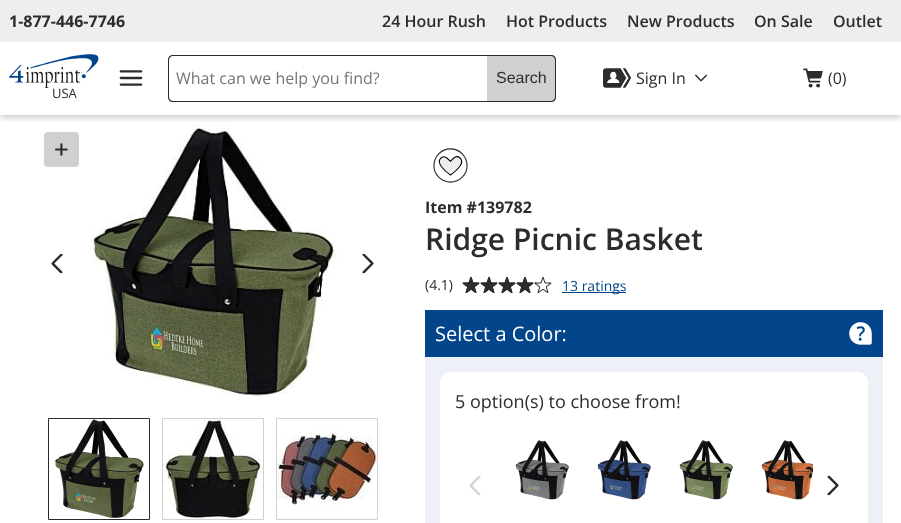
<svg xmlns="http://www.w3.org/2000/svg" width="901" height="523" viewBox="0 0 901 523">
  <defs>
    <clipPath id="clip1"><path d="M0 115h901v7H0z"/></clipPath>
  </defs>
  <rect width="100%" height="100%" fill="#fff"/>
  <g clip-path="url(#clip1)">
    <path d="M0 1h901v115H0z" fill="#0000004d" filter="blur(4px)"/>
  </g>
  <path d="M0 0h901v42H0z" fill="#eee"/>
  <image x="119" y="70" width="24" height="16" href="img/1.png"/>
  <path d="M173 55H487V102H173C170 102 168 100 168 97V60C168 57 170 55 173 55ZM173 56H487V101H173C171 101 169 99 169 97V60C169 58 171 56 173 56Z" fill="#2c2c2c" fill-rule="evenodd"/>
  <path d="M487 55H551C554 55 556 57 556 60V97C556 100 554 102 551 102H487Z" fill="#d0d0d0"/>
  <path d="M487 55H551C554 55 556 57 556 60V97C556 100 554 102 551 102H487ZM487 56H551C553 56 555 58 555 60V97C555 99 553 101 551 101H487Z" fill="#2c2c2c" fill-rule="evenodd"/>
  <image x="603" y="68" width="28" height="20" href="img/2.png"/>
  <image x="695" y="74" width="12" height="8" href="img/3.png"/>
  <image x="803" y="68" width="20" height="20" href="img/4.png"/>
  <image x="9" y="54" width="90" height="34" href="img/5.png"/>
  <image x="51" y="253" width="12" height="21" href="img/6.png"/>
  <image x="91" y="127" width="246" height="270" href="img/7.png"/>
  <image x="362" y="253" width="12" height="21" href="img/8.png"/>
  <rect x="44" y="132" width="35" height="35" rx="4" fill="#d0d0d0"/>
  <image x="55" y="143" width="13" height="13" href="img/9.png"/>
  <path d="M48.5 418.5h101v101H48.5z" fill="none" stroke="#2c2c2c"/>
  <image x="55" y="419" width="89" height="99" href="img/10.png"/>
  <path d="M162.5 418.5h101v101H162.5z" fill="none" stroke="#d0d0d0"/>
  <image x="163" y="419" width="100" height="100" href="img/11.png"/>
  <path d="M276.5 418.5h101v101H276.5z" fill="none" stroke="#d0d0d0"/>
  <image x="277" y="427" width="100" height="80" href="img/12.png"/>
  <image x="433" y="148" width="35" height="35" href="img/13.png"/>
  <image x="462" y="277" width="18" height="16" href="img/14.png"/>
  <image x="480" y="277" width="18" height="16" href="img/14.png"/>
  <image x="498" y="277" width="18" height="16" href="img/15.png"/>
  <image x="516" y="277" width="18" height="16" href="img/14.png"/>
  <image x="534" y="277" width="18" height="16" href="img/14.png"/>
  <image x="462" y="277" width="18" height="16" href="img/16.png"/>
  <image x="480" y="277" width="18" height="16" href="img/16.png"/>
  <image x="498" y="277" width="18" height="16" href="img/17.png"/>
  <image x="516" y="277" width="18" height="16" href="img/16.png"/>
  <image x="534" y="282" width="2" height="3" href="img/18.png"/>
  <path d="M562 292h64v1H562z" fill="#02458b"/>
  <path d="M425 357h458v166H425z" fill="#edf1f7"/>
  <path d="M425 310h458v47H425z" fill="#02458b"/>
  <image x="849" y="322" width="23" height="23" href="img/19.png"/>
  <rect x="440" y="372" width="428" height="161" rx="10" fill="#fff"/>
  <image x="469" y="475" width="12" height="21" href="img/20.png"/>
  <image x="515" y="440" width="54" height="60" href="img/21.png"/>
  <image x="597" y="440" width="54" height="60" href="img/22.png"/>
  <image x="679" y="440" width="54" height="60" href="img/23.png"/>
  <image x="761" y="440" width="52" height="60" href="img/24.png"/>
  <image x="827" y="475" width="12" height="21" href="img/25.png"/>
  <text x="9" y="27" font-family="Open Sans" font-size="16" font-weight="bold" fill="#2c2c2c">1-877-446-7746</text>
  <g font-family="Open Sans" font-size="16" font-weight="600" fill="#2c2c2c">
    <text x="382" y="27">24 Hour Rush</text>
    <text x="506" y="27">Hot Products</text>
    <text x="627" y="27">New Products</text>
    <text x="754" y="27">On Sale</text>
    <text x="833" y="27">Outlet</text>
  </g>
  <text x="176" y="84" font-family="Open Sans" font-size="16" fill="#757575">What can we help you find?</text>
  <text x="496" y="83" font-family="Liberation Sans" font-size="16" fill="#2c2c2c">Search</text>
  <g font-family="Open Sans" font-size="16" fill="#2c2c2c">
    <text x="636" y="84">Sign In</text>
    <text x="828" y="84">(0)</text>
  </g>
  <text x="52" y="98" font-family="Open Sans" font-size="13" fill="#2c2c2c">USA</text>
  <text x="425" y="213" font-family="Open Sans" font-size="16" font-weight="bold" fill="#2c2c2c">Item #139782</text>
  <text x="425" y="250" font-family="Open Sans" font-size="30" font-weight="600" fill="#2c2c2c">Ridge Picnic Basket</text>
  <text x="425" y="290" font-family="Open Sans" font-size="14" fill="#2c2c2c">(4.1)</text>
  <text x="562" y="291" font-family="Open Sans" font-size="14" fill="#02458b">13 ratings</text>
  <text x="435" y="341" font-family="Open Sans" font-size="20" fill="#fff">Select a Color:</text>
  <text x="455" y="408" font-family="Open Sans" font-size="18" fill="#2c2c2c">5 option(s) to choose from!</text>
</svg>
